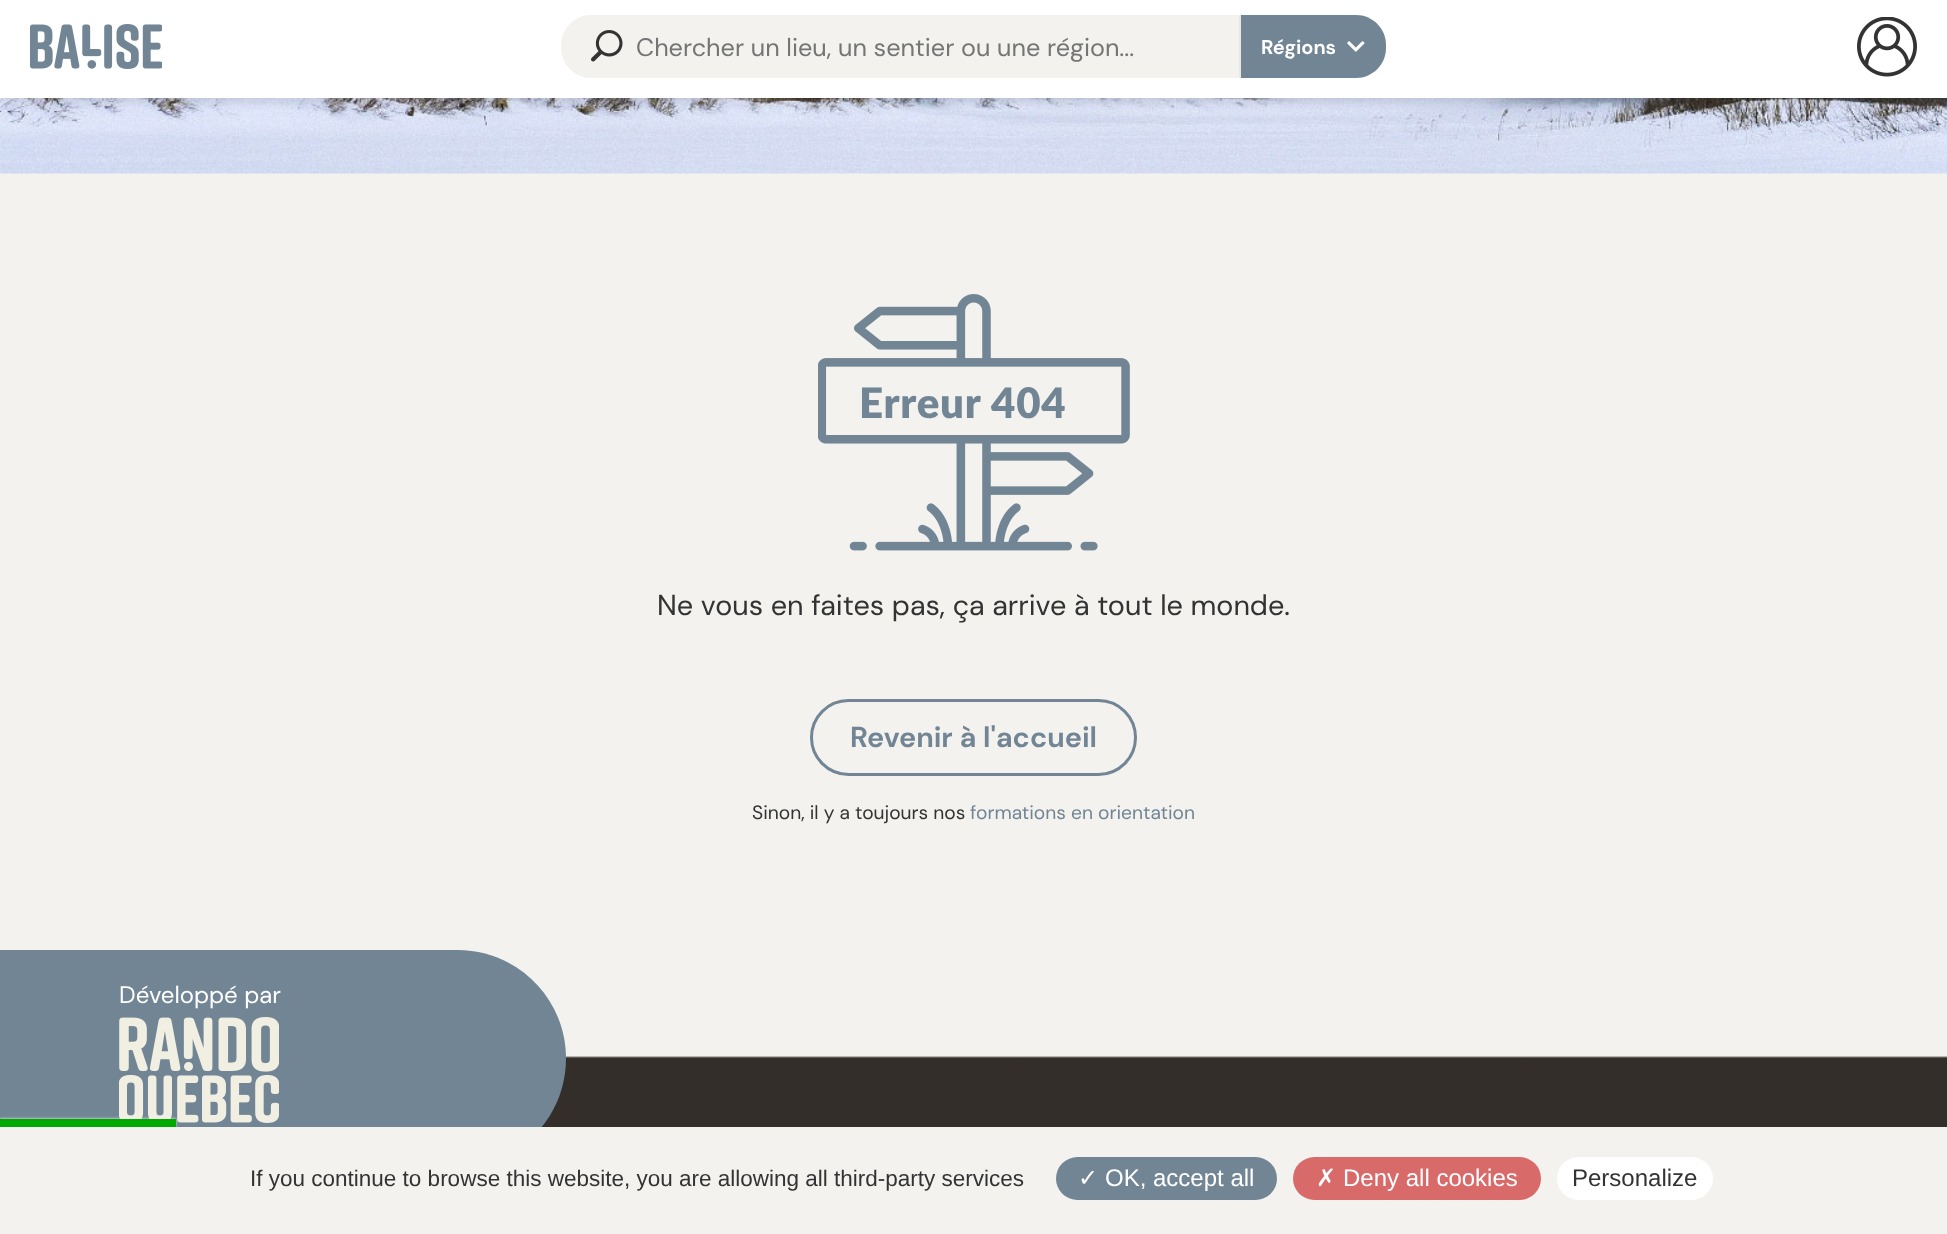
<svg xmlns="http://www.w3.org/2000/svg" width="1947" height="1234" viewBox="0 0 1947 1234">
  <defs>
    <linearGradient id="g1" gradientUnits="userSpaceOnUse" x1="974" y1="949" x2="974" y2="1167"><stop offset="0.49" stop-color="#f3f2ee"/><stop offset="0.5" stop-color="#332e2a"/></linearGradient>
  </defs>
  <rect width="100%" height="100%" fill="#fff"/>
  <path d="M0 173h1947v777H0z" fill="#f3f2ee"/>
  <image x="0" y="98" width="1947" height="76" href="img/5.png"/>
  <path d="M0 5h1947v97H0z" fill="#0000001a" filter="blur(4px)"/>
  <path d="M0 0h1947v98H0z" fill="#fff"/>
  <image x="30" y="24" width="132" height="45" href="img/1.png"/>
  <rect x="561" y="15" width="825" height="63" rx="30" fill="#f3f2ee"/>
  <image x="591" y="30" width="32" height="32" href="img/2.png"/>
  <path d="M1239 15H1356C1372.5 15 1386 28.5 1386 45V48C1386 64.5 1372.5 78 1356 78H1239Z" fill="#718595"/>
  <path d="M1239 15h2v63H1239z" fill="#e8e8e8"/>
  <image x="1347" y="41" width="18" height="11" href="img/3.png"/>
  <image x="1857" y="17" width="60" height="60" href="img/4.png"/>
  <image x="818" y="294" width="312" height="257" href="img/6.png"/>
  <rect x="811.5" y="700.5" width="324" height="74" rx="37" fill="none" stroke="#718595" stroke-width="3"/>
  <path d="M458 950h1489v177H458z" fill="url(#g1)"/>
  <path d="M0 950h89v169H0z" fill="#718595"/>
  <path d="M89 950H457.5C517.5 950 566 998.5 566 1058.5C566 1118.5 517.5 1167 457.5 1167H89Z" fill="#718595"/>
  <image x="119" y="1017" width="160" height="106" href="img/7.png"/>
  <path d="M0 1121h176v7H0z" fill="#555" filter="blur(1.5px)"/>
  <path d="M0 1119h176v8H0z" fill="#fff" filter="blur(1.5px)"/>
  <path d="M0 1119h176v8H0z" fill="#0a0"/>
  <path d="M0 1127h1947v107H0z" fill="#f3f2ee"/>
  <rect x="1056" y="1157" width="221" height="43" rx="21.5" fill="#718595"/>
  <rect x="1293" y="1157" width="248" height="43" rx="21.5" fill="#d96a6a"/>
  <rect x="1557" y="1157" width="156" height="43" rx="21.5" fill="#fff"/>
  <text x="636" y="56" font-family="DM Sans" font-size="25.25" fill="#757575">Chercher un lieu, un sentier ou une région...</text>
  <text x="1261" y="54" font-family="DM Sans" font-size="20" font-weight="bold" fill="#fff">Régions</text>
  <text x="859" y="418" font-family="Lato" font-size="42" font-weight="800" letter-spacing="0.75" fill="#718595">Erreur 404</text>
  <text x="657" y="615" font-family="DM Sans" font-size="28.8" fill="#333334">Ne vous en faites pas, ça arrive à tout le monde.</text>
  <text x="850" y="747" font-family="DM Sans" font-size="28.8" font-weight="bold" fill="#718595">Revenir à l'accueil</text>
  <text x="752" y="819" font-family="DM Sans" font-size="19.25" fill="#333334">Sinon, il y a toujours nos</text>
  <text x="970" y="819" font-family="DM Sans" font-size="19.25" fill="#718595">formations en orientation</text>
  <text x="119" y="1003" font-family="DM Sans" font-size="24" fill="#fff">Développé par</text>
  <text x="250" y="1186" font-family="Liberation Sans" font-size="22.5" fill="#333334">If you continue to browse this website, you are allowing all third-party services</text>
  <text x="1078" y="1186" font-family="DejaVu Sans" font-size="24" fill="#fff">✓</text>
  <text x="1105" y="1186" font-family="Liberation Sans" font-size="24" fill="#fff">OK, accept all</text>
  <text x="1316" y="1186" font-family="DejaVu Sans" font-size="24" fill="#fff">✗</text>
  <text x="1343" y="1186" font-family="Liberation Sans" font-size="24" fill="#fff">Deny all cookies</text>
  <text x="1572" y="1186" font-family="Liberation Sans" font-size="24" fill="#333334">Personalize</text>
</svg>
